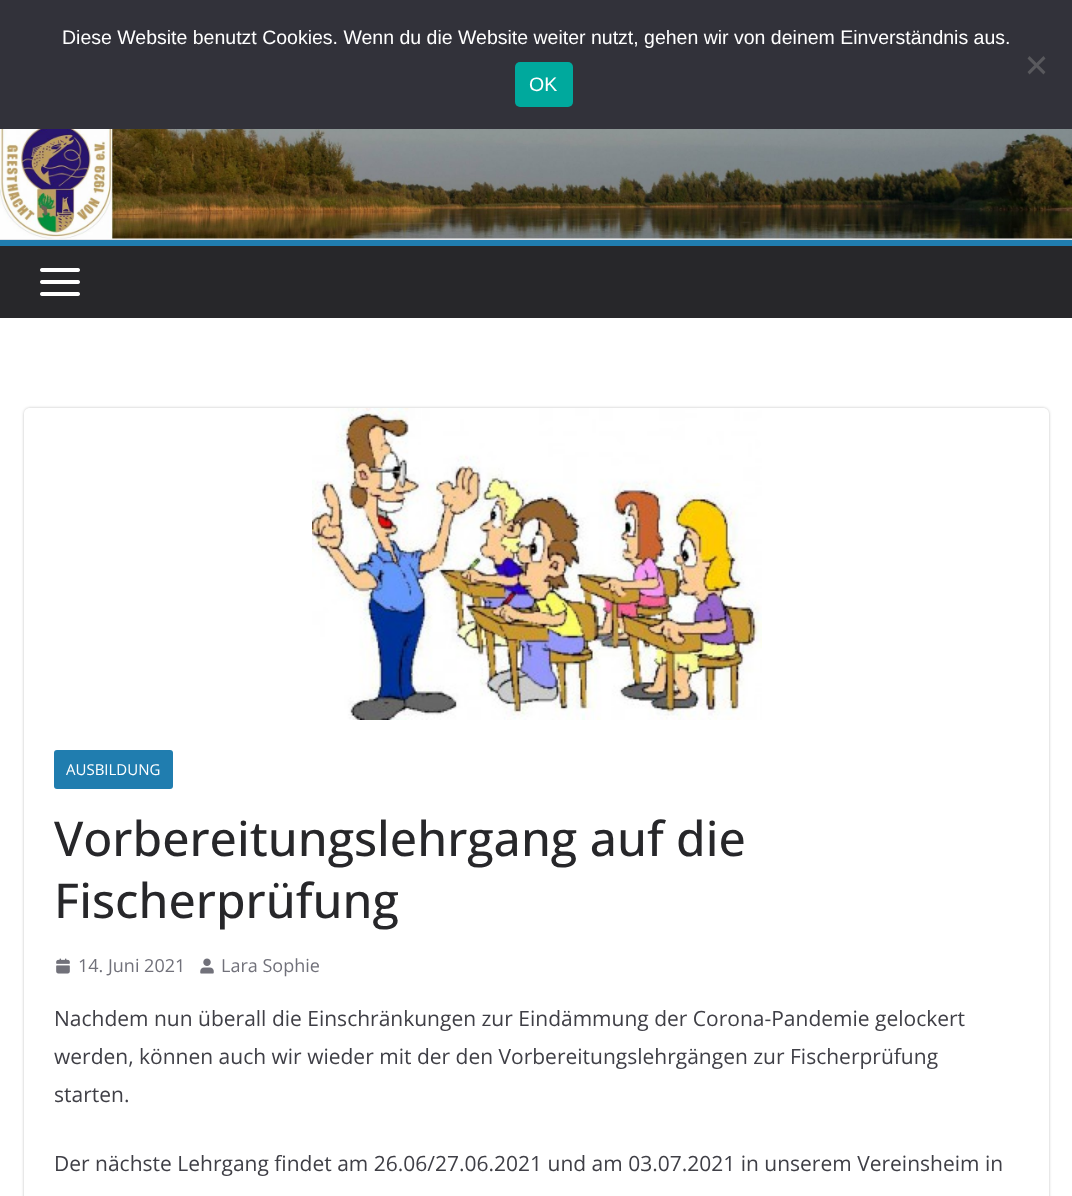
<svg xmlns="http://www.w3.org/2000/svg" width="1072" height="1196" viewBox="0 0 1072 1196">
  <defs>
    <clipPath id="clip1"><path d="M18 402H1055V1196H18ZM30 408H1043C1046.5 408 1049 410.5 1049 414V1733C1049 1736.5 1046.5 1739 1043 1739H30C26.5 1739 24 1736.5 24 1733V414C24 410.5 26.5 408 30 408Z" clip-rule="evenodd"/></clipPath>
  </defs>
  <rect width="100%" height="100%" fill="#fff"/>
  <path d="M0 0h1072v129H0z" fill="#32323a"/>
  <path d="M1043.5 56L1045.5 58.5L1029.5 74.5L1027.5 72Z" fill="#59595d"/>
  <path d="M1027.5 58.5L1029.5 56L1045.5 72L1043.5 74.5Z" fill="#59595d"/>
  <rect x="515" y="62" width="58" height="45" rx="5" fill="#00a99d"/>
  <image x="0" y="129" width="1072" height="110" href="img/1.png"/>
  <path d="M0 239h1072v1H0z" fill="#e4e4e7"/>
  <path d="M0 246h1072v72H0z" fill="#27272a"/>
  <path d="M0 240h1072v6H0z" fill="#207daf"/>
  <image x="40" y="268" width="40" height="28" href="img/2.png"/>
  <g clip-path="url(#clip1)">
    <rect x="24" y="408" width="1025" height="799" rx="6" fill="#0000003d" filter="blur(1.5px)"/>
  </g>
  <image x="312" y="408" width="450" height="312" href="img/3.png"/>
  <rect x="54" y="750" width="119" height="39" rx="3" fill="#207daf"/>
  <image x="56" y="958" width="14" height="16" href="img/4.png"/>
  <image x="200" y="958" width="14" height="16" href="img/5.png"/>
  <g font-family="Liberation Sans" font-size="19.5" fill="#fff">
    <text x="62" y="44">Diese Website benutzt Cookies. Wenn du die Website weiter nutzt, gehen wir von deinem Einverständnis aus.</text>
    <text x="529" y="91">OK</text>
  </g>
  <text x="66" y="775" font-family="Open Sans" font-size="15" fill="#fff">AUSBILDUNG</text>
  <g font-family="Open Sans" font-size="48" font-weight="500" fill="#27272a">
    <text x="54" y="856">Vorbereitungslehrgang auf die</text>
    <text x="54" y="918">Fischerprüfung</text>
  </g>
  <g font-family="Open Sans" font-size="18" fill="#71717a">
    <text x="78" y="972">14. Juni 2021</text>
    <text x="221" y="972">Lara Sophie</text>
  </g>
  <g font-family="Open Sans" font-size="21" fill="#3f3f46">
    <text x="54" y="1026">Nachdem nun überall die Einschränkungen zur Eindämmung der Corona-Pandemie gelockert</text>
    <text x="54" y="1064">werden, können auch wir wieder mit der den Vorbereitungslehrgängen zur Fischerprüfung</text>
    <text x="54" y="1102">starten.</text>
    <text x="54" y="1171">Der nächste Lehrgang findet am 26.06/27.06.2021 und am 03.07.2021 in unserem Vereinsheim in</text>
  </g>
</svg>
